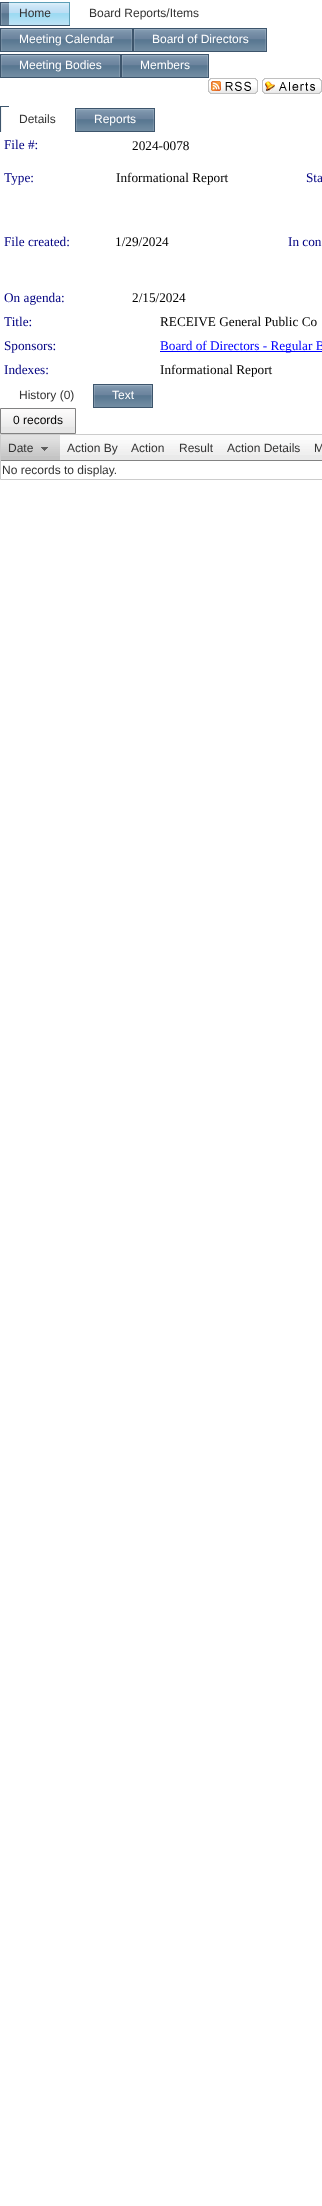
<svg xmlns="http://www.w3.org/2000/svg" width="322" height="2206" viewBox="0 0 322 2206">
  <rect width="100%" height="100%" fill="#fff"/>
  <image x="0" y="2" width="9" height="24" href="img/1.png"/>
  <image x="9" y="2" width="61" height="24" href="img/2.png"/>
  <image x="0" y="28" width="9" height="24" href="img/3.png"/>
  <image x="9" y="28" width="124" height="24" href="img/4.png"/>
  <image x="133" y="28" width="9" height="24" href="img/1.png"/>
  <image x="142" y="28" width="125" height="24" href="img/5.png"/>
  <image x="0" y="54" width="9" height="24" href="img/3.png"/>
  <image x="9" y="54" width="112" height="24" href="img/6.png"/>
  <image x="121" y="54" width="9" height="24" href="img/1.png"/>
  <image x="130" y="54" width="79" height="24" href="img/7.png"/>
  <image x="208" y="78" width="50" height="16" href="img/8.png"/>
  <image x="262" y="78" width="60" height="16" href="img/9.png"/>
  <image x="0" y="106" width="9" height="26" href="img/10.png"/>
  <image x="75" y="108" width="9" height="24" href="img/1.png"/>
  <image x="84" y="108" width="71" height="24" href="img/11.png"/>
  <path d="M160 351h162v1H160z" fill="#00f"/>
  <image x="93" y="384" width="9" height="24" href="img/1.png"/>
  <image x="102" y="384" width="51" height="24" href="img/12.png"/>
  <path d="M1 427h74v6H1z" fill="#e6e6e6"/>
  <image x="1" y="409" width="74" height="18" href="img/13.png"/>
  <path d="M0.5 408.5h75v25H0.5z" fill="none" stroke="#828282"/>
  <path d="M0.5 434.5h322v45H0.5z" fill="none" stroke="#ccc"/>
  <path d="M1 456h59v4H1z" fill="#c4c4c4"/>
  <image x="1" y="435" width="59" height="21" href="img/14.png"/>
  <path d="M1 460h321v1H1z" fill="#828282"/>
  <image x="41" y="447" width="7" height="4" href="img/15.png"/>
  <path d="M60 455h262v5H60z" fill="#eaeaea"/>
  <image x="60" y="435" width="64" height="20" href="img/16.png"/>
  <image x="124" y="435" width="48" height="20" href="img/17.png"/>
  <image x="172" y="435" width="48" height="20" href="img/17.png"/>
  <image x="220" y="435" width="87" height="20" href="img/18.png"/>
  <image x="307" y="435" width="15" height="20" href="img/19.png"/>
  <g font-family="Liberation Sans" font-size="12" fill="#333">
    <text x="19" y="17">Home</text>
    <text x="89" y="17">Board Reports/Items</text>
  </g>
  <g font-family="Liberation Sans" font-size="12" fill="#fff">
    <text x="19" y="43">Meeting Calendar</text>
    <text x="152" y="43">Board of Directors</text>
    <text x="19" y="69">Meeting Bodies</text>
    <text x="140" y="69">Members</text>
  </g>
  <text x="19" y="123" font-family="Liberation Sans" font-size="12" fill="#333">Details</text>
  <text x="94" y="123" font-family="Liberation Sans" font-size="12" fill="#fff">Reports</text>
  <text x="4" y="149" font-family="Liberation Serif" font-size="13.25" fill="#000080">File #:</text>
  <text x="132" y="150" font-family="Liberation Serif" font-size="13.25" fill="#000">2024-0078</text>
  <text x="4" y="182" font-family="Liberation Serif" font-size="13.25" fill="#000080">Type:</text>
  <text x="116" y="182" font-family="Liberation Serif" font-size="13.25" fill="#000">Informational Report</text>
  <g font-family="Liberation Serif" font-size="13.25" fill="#000080">
    <text x="306" y="182">Sta</text>
    <text x="4" y="246">File created:</text>
  </g>
  <text x="115" y="246" font-family="Liberation Serif" font-size="13.25" fill="#000">1/29/2024</text>
  <g font-family="Liberation Serif" font-size="13.25" fill="#000080">
    <text x="288" y="246">In con</text>
    <text x="4" y="302">On agenda:</text>
  </g>
  <text x="132" y="302" font-family="Liberation Serif" font-size="13.25" fill="#000">2/15/2024</text>
  <text x="4" y="326" font-family="Liberation Serif" font-size="13.25" fill="#000080">Title:</text>
  <text x="160" y="326" font-family="Liberation Serif" font-size="13.25" fill="#000">RECEIVE General Public Co</text>
  <text x="4" y="350" font-family="Liberation Serif" font-size="13.25" fill="#000080">Sponsors:</text>
  <text x="160" y="350" font-family="Liberation Serif" font-size="13.25" fill="#00f">Board of Directors - Regular B</text>
  <text x="4" y="374" font-family="Liberation Serif" font-size="13.25" fill="#000080">Indexes:</text>
  <text x="160" y="374" font-family="Liberation Serif" font-size="13.25" fill="#000">Informational Report</text>
  <text x="19" y="399" font-family="Liberation Sans" font-size="12" fill="#333">History (0)</text>
  <text x="112" y="399" font-family="Liberation Sans" font-size="12" fill="#fff">Text</text>
  <text x="13" y="424" font-family="Liberation Sans" font-size="12" fill="#000">0 records</text>
  <g font-family="Liberation Sans" font-size="12" fill="#333">
    <text x="8" y="452">Date</text>
    <text x="67" y="452">Action By</text>
    <text x="131" y="452">Action</text>
    <text x="179" y="452">Result</text>
    <text x="227" y="452">Action Details</text>
    <text x="314" y="452">M</text>
    <text x="2" y="474">No records to display.</text>
  </g>
</svg>
